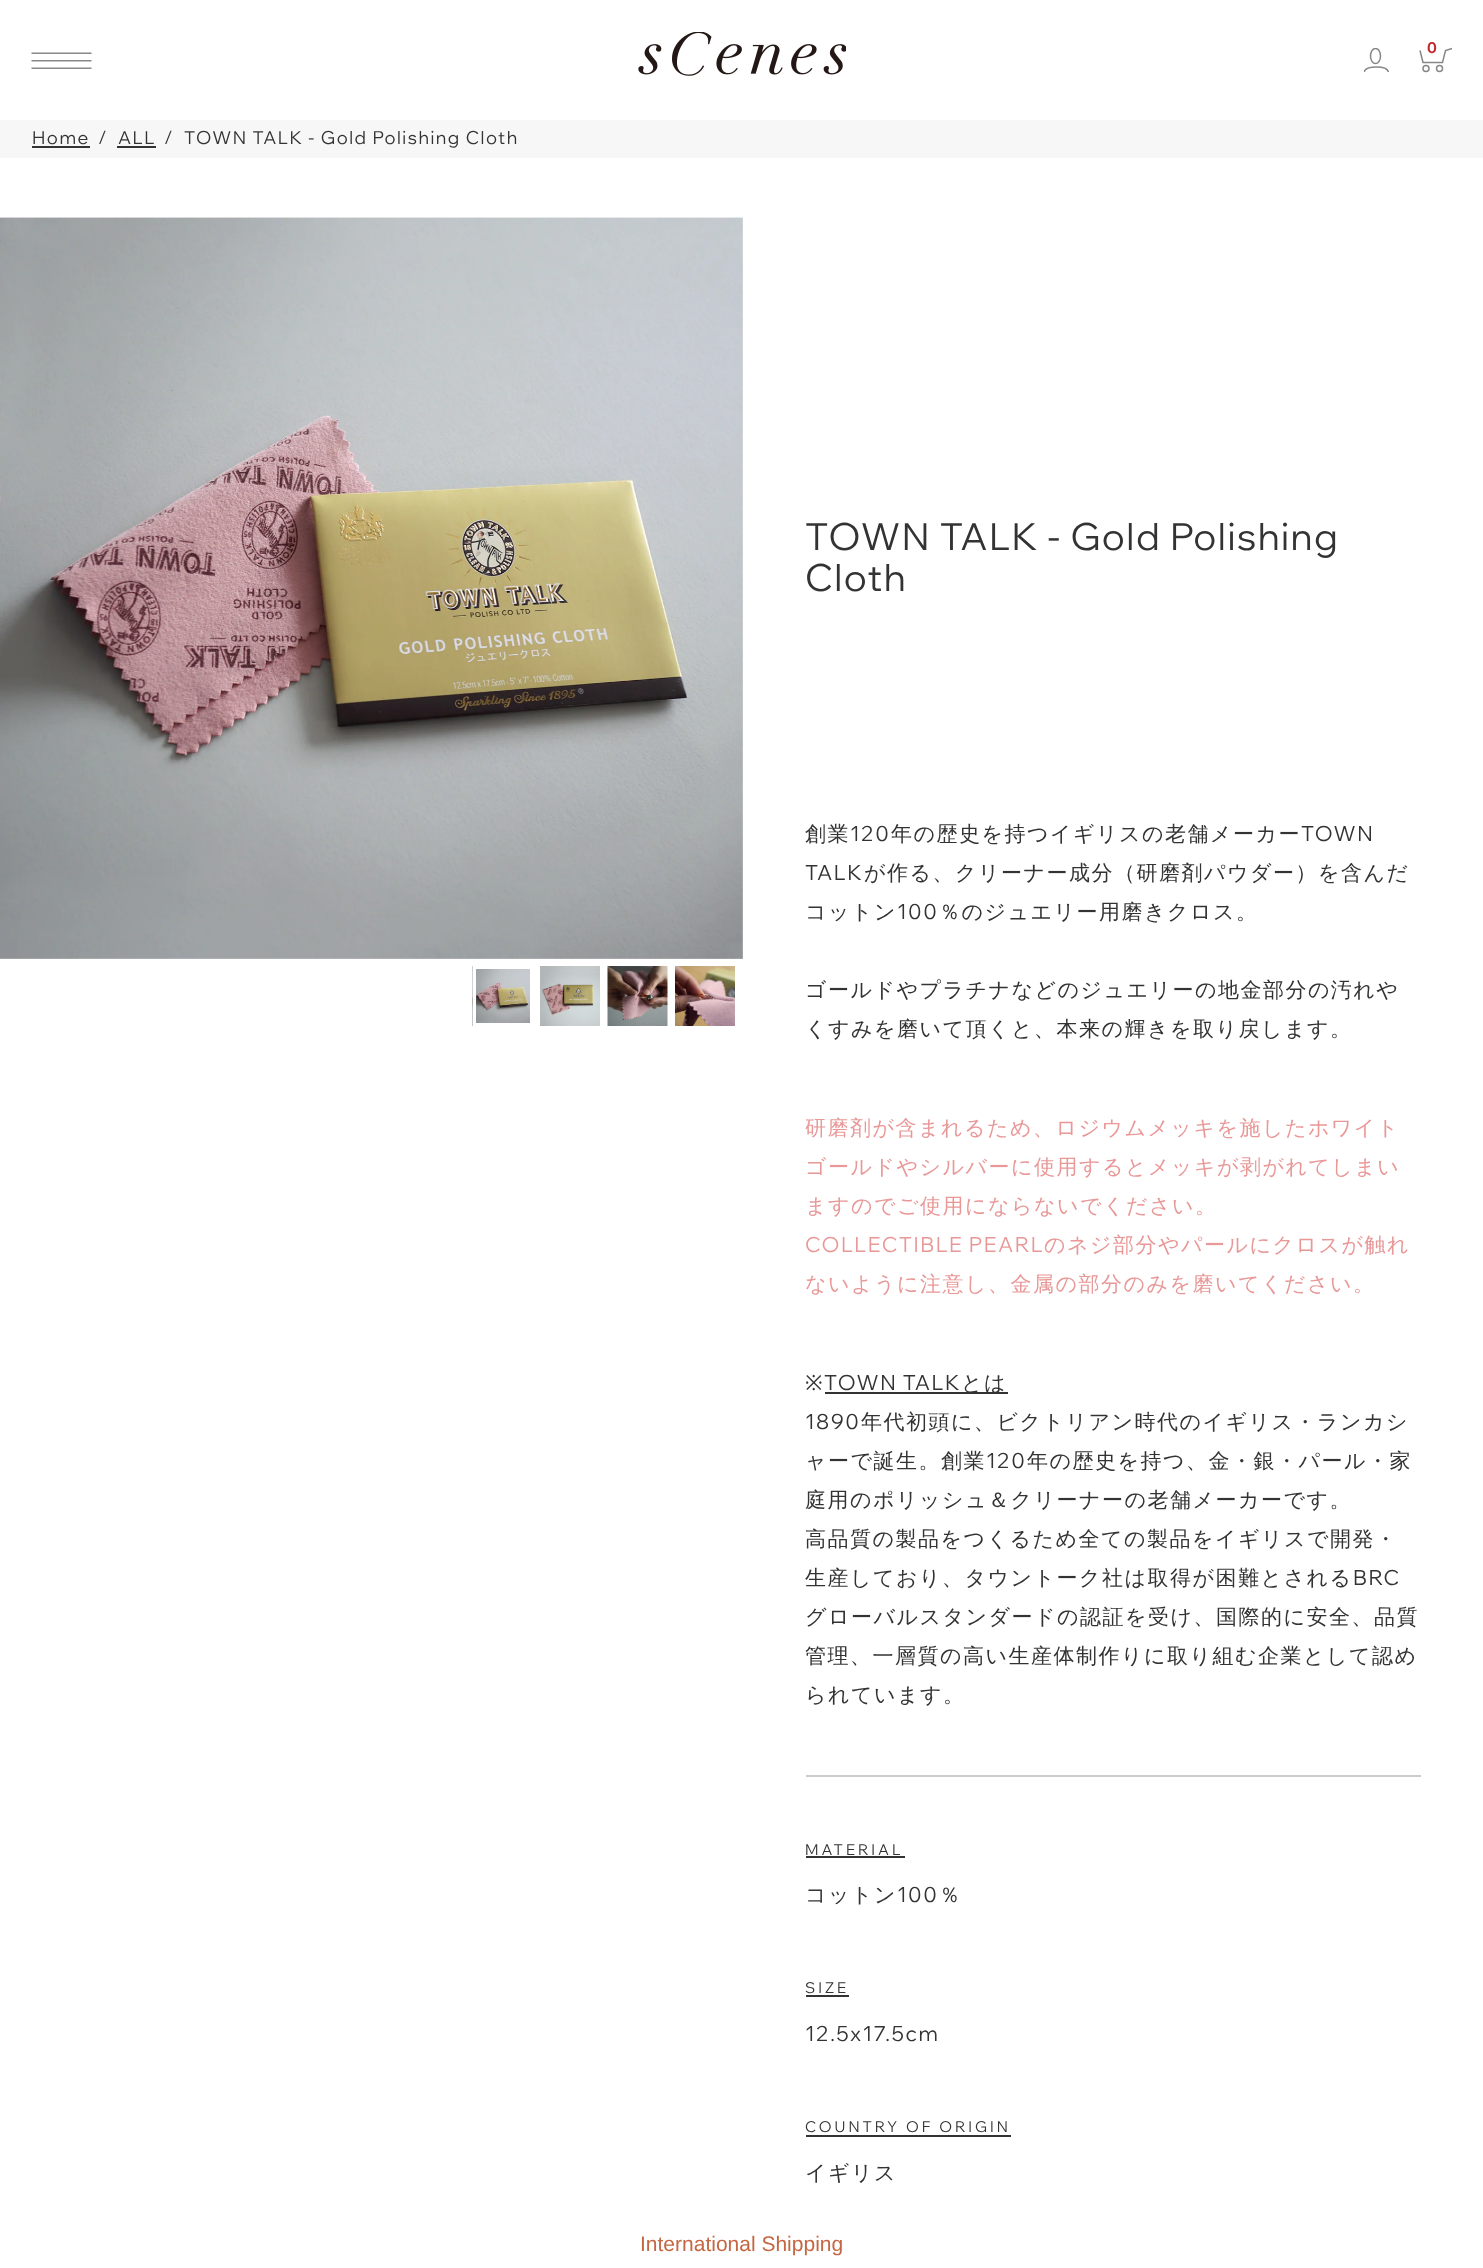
<svg xmlns="http://www.w3.org/2000/svg" width="1483" height="2268" viewBox="0 0 1483 2268">
  <defs>
    <clipPath id="clip1"><path d="M1364 48h25v24H1364z"/></clipPath>
  </defs>
  <rect width="100%" height="100%" fill="#fff"/>
  <image x="638" y="32" width="208" height="44" href="img/1.png"/>
  <g clip-path="url(#clip1)">
    <ellipse cx="1375.5" cy="56" rx="5" ry="7.5" fill="none" stroke="#888687" stroke-width="1.5"/>
    <path d="M1364 73C1364 67 1372 67 1376.5 67C1380.5 67 1388.5 67 1388.5 73" fill="none" stroke="#888687" stroke-width="1.5"/>
  </g>
  <path d="M1420 50.5L1423 62.5H1442.5L1445.5 50.5L1452 48.5" fill="none" stroke="#888687" stroke-width="1.5"/>
  <circle cx="1426" cy="68.5" r="3" fill="none" stroke="#888687" stroke-width="1.5"/>
  <circle cx="1439.5" cy="68.5" r="3" fill="none" stroke="#888687" stroke-width="1.5"/>
  <image x="31" y="52" width="61" height="17" href="img/2.png"/>
  <path d="M0 120h1483v38H0z" fill="#f7f7f7"/>
  <path d="M32 146h58v2H32z" fill="#333"/>
  <path d="M117 146h39v2H117z" fill="#333"/>
  <image x="0" y="217" width="743" height="742" href="img/3.png"/>
  <image x="472" y="966" width="58" height="60" href="img/4.png"/>
  <path d="M474.5 967.5h57v57H474.5z" fill="none" stroke="#fff" stroke-width="3"/>
  <image x="540" y="966" width="60" height="60" href="img/5.png"/>
  <image x="607" y="966" width="61" height="60" href="img/6.png"/>
  <image x="675" y="966" width="60" height="60" href="img/7.png"/>
  <path d="M825 1392h183v2H825z" fill="#333"/>
  <path d="M806 1775h615v2H806z" fill="#ccc"/>
  <path d="M806 1856h99v2H806z" fill="#333"/>
  <path d="M806 1995h43v2H806z" fill="#333"/>
  <path d="M806 2135h205v2H806z" fill="#333"/>
  <text x="1427" y="53" font-family="Wix Madefor Display" font-size="15" font-weight="bold" letter-spacing="1.5" fill="#c1272d">0</text>
  <g font-family="Wix Madefor Display" font-size="18" letter-spacing="1.5" fill="#333">
    <text x="32" y="144">Home</text>
    <text x="98" y="144">/</text>
    <text x="118" y="144">ALL</text>
    <text x="164" y="144">/</text>
    <text x="184" y="144">TOWN TALK - Gold Polishing Cloth</text>
  </g>
  <g font-family="Wix Madefor Display" font-size="37.5" letter-spacing="1.5" fill="#333">
    <text x="805" y="550">TOWN TALK - Gold Polishing</text>
    <text x="805" y="591">Cloth</text>
  </g>
  <text x="805" y="841" font-family="WenQuanYi Zen Hei" font-size="21" font-weight="500" letter-spacing="1.5" fill="#333">創業</text>
  <text x="850" y="841" font-family="Wix Madefor Display" font-size="21" letter-spacing="1.5" fill="#333">120</text>
  <text x="891" y="841" font-family="WenQuanYi Zen Hei" font-size="21" font-weight="500" letter-spacing="1.5" fill="#333">年の歴史を持つイギリスの老舗メーカー</text>
  <g font-family="Wix Madefor Display" font-size="21" letter-spacing="1.5" fill="#333">
    <text x="1301" y="841">TOWN</text>
    <text x="805" y="880">TALK</text>
  </g>
  <g font-family="WenQuanYi Zen Hei" font-size="21" font-weight="500" letter-spacing="1.5" fill="#333">
    <text x="864" y="880">が作る、クリーナー成分（研磨剤パウダー）を含んだ</text>
    <text x="805" y="919">コットン</text>
  </g>
  <text x="897" y="919" font-family="Wix Madefor Display" font-size="21" letter-spacing="1.5" fill="#333">100</text>
  <g font-family="WenQuanYi Zen Hei" font-size="21" font-weight="500" letter-spacing="1.5" fill="#333">
    <text x="939" y="919">％のジュエリー用磨きクロス。</text>
    <text x="805" y="997">ゴールドやプラチナなどのジュエリーの地金部分の汚れや</text>
    <text x="805" y="1036">くすみを磨いて頂くと、本来の輝きを取り戻します。</text>
  </g>
  <g font-family="WenQuanYi Zen Hei" font-size="21" font-weight="500" letter-spacing="1.5" fill="#e99898">
    <text x="805" y="1135">研磨剤が含まれるため、ロジウムメッキを施したホワイト</text>
    <text x="805" y="1174">ゴールドやシルバーに使用するとメッキが剥がれてしまい</text>
    <text x="805" y="1213">ますのでご使用にならないでください。</text>
  </g>
  <text x="805" y="1252" font-family="Wix Madefor Display" font-size="21" letter-spacing="1.5" fill="#e99898">COLLECTIBLE PEARL</text>
  <g font-family="WenQuanYi Zen Hei" font-size="21" font-weight="500" letter-spacing="1.5" fill="#e99898">
    <text x="1044" y="1252">のネジ部分やパールにクロスが触れ</text>
    <text x="805" y="1291">ないように注意し、金属の部分のみを磨いてください。</text>
  </g>
  <text x="805" y="1390" font-family="Noto Sans" font-size="21" letter-spacing="1.5" fill="#333">※</text>
  <text x="824" y="1390" font-family="Wix Madefor Display" font-size="21" letter-spacing="1.5" fill="#333">TOWN TALK</text>
  <text x="961" y="1390" font-family="WenQuanYi Zen Hei" font-size="21" font-weight="500" letter-spacing="1.5" fill="#333">とは</text>
  <text x="805" y="1429" font-family="Wix Madefor Display" font-size="21" letter-spacing="1.5" fill="#333">1890</text>
  <g font-family="WenQuanYi Zen Hei" font-size="21" font-weight="500" letter-spacing="1.5" fill="#333">
    <text x="861" y="1429">年代初頭に、ビクトリアン時代のイギリス・ランカシ</text>
    <text x="805" y="1468">ャーで誕生。創業</text>
  </g>
  <text x="986" y="1468" font-family="Wix Madefor Display" font-size="21" letter-spacing="1.5" fill="#333">120</text>
  <g font-family="WenQuanYi Zen Hei" font-size="21" font-weight="500" letter-spacing="1.5" fill="#333">
    <text x="1027" y="1468">年の歴史を持つ、金・銀・パール・家</text>
    <text x="805" y="1507">庭用のポリッシュ＆クリーナーの老舗メーカーです。</text>
    <text x="805" y="1546">高品質の製品をつくるため全ての製品をイギリスで開発・</text>
    <text x="805" y="1585">生産しており、タウントーク社は取得が困難とされる</text>
  </g>
  <text x="1353" y="1585" font-family="Wix Madefor Display" font-size="21" letter-spacing="1.5" fill="#333">BRC</text>
  <g font-family="WenQuanYi Zen Hei" font-size="21" font-weight="500" letter-spacing="1.5" fill="#333">
    <text x="805" y="1624">グローバルスタンダードの認証を受け、国際的に安全、品質</text>
    <text x="805" y="1663">管理、一層質の高い生産体制作りに取り組む企業として認め</text>
    <text x="805" y="1702">られています。</text>
  </g>
  <text x="805" y="1855" font-family="Wix Madefor Display" font-size="15" letter-spacing="3" fill="#333">MATERIAL</text>
  <text x="805" y="1902" font-family="WenQuanYi Zen Hei" font-size="21" font-weight="500" letter-spacing="1.5" fill="#333">コットン</text>
  <text x="897" y="1902" font-family="Wix Madefor Display" font-size="21" letter-spacing="1.5" fill="#333">100</text>
  <text x="939" y="1902" font-family="WenQuanYi Zen Hei" font-size="21" font-weight="500" letter-spacing="1.5" fill="#333">％</text>
  <text x="805" y="1993" font-family="Wix Madefor Display" font-size="15" letter-spacing="3" fill="#333">SIZE</text>
  <text x="805" y="2041" font-family="Wix Madefor Display" font-size="21" letter-spacing="1.5" fill="#333">12.5x17.5cm</text>
  <text x="805" y="2132" font-family="Wix Madefor Display" font-size="15" letter-spacing="3" fill="#333">COUNTRY OF ORIGIN</text>
  <text x="805" y="2180" font-family="WenQuanYi Zen Hei" font-size="21" font-weight="500" letter-spacing="1.5" fill="#333">イギリス</text>
  <text x="640" y="2251" font-family="Liberation Sans" font-size="21" fill="#c46742">International Shipping</text>
</svg>
